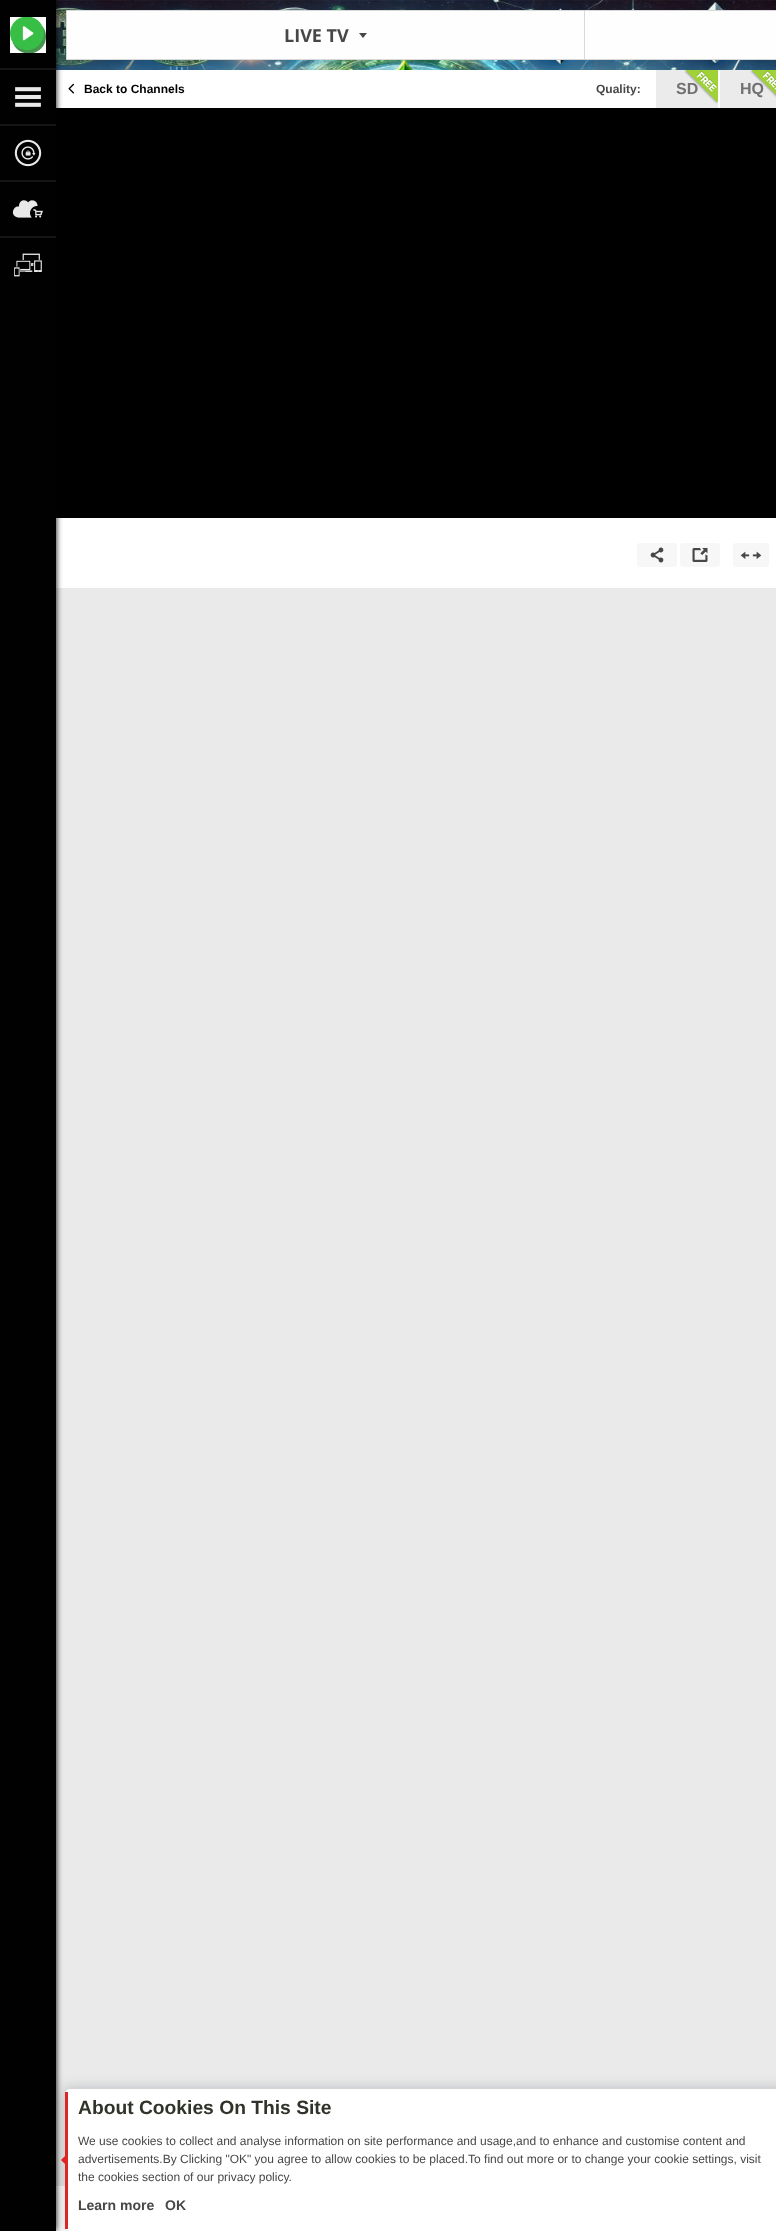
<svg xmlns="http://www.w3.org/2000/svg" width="776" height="2231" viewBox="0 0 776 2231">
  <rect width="100%" height="100%" fill="#eaeaea"/>
  <image x="56" y="0" width="720" height="70" href="img/1.png"/>
  <path d="M58 76h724v444H58z" fill="#000d1a26" filter="blur(9px)"/>
  <path d="M56 70h664v38H56z" fill="#fff"/>
  <path d="M56 108h720v410H56z" fill="#000"/>
  <path d="M56 518h720v70H56z" fill="#fff"/>
  <path d="M56 2186h14v45H56z" fill="#fff"/>
  <rect x="62" y="2086" width="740" height="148" rx="8" fill="#000d1a26" filter="blur(6px)"/>
  <rect x="65" y="2089" width="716" height="142" rx="5" fill="#fff"/>
  <path d="M65 2092h3v137H65z" fill="#de2525"/>
  <path d="M68 2153V2167L61 2160Z" fill="#de2525"/>
  <path d="M0 0h56v2231H0z" fill="#010101" filter="blur(3px)"/>
  <path d="M0 0h56v2231H0z" fill="#010101"/>
  <image x="10" y="17" width="36" height="36" href="img/2.png"/>
  <path d="M0 68h56v2H0z" fill="#141414"/>
  <image x="15" y="87" width="26" height="20" href="img/3.png"/>
  <path d="M0 124h56v2H0z" fill="#141414"/>
  <image x="14" y="139" width="28" height="28" href="img/4.png"/>
  <path d="M0 180h56v2H0z" fill="#141414"/>
  <image x="12" y="200" width="31" height="18" href="img/5.png"/>
  <path d="M0 236h56v2H0z" fill="#141414"/>
  <image x="14" y="253" width="28" height="24" href="img/6.png"/>
  <path d="M66.5 10.5h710v49H66.5z" fill="#fefefe" stroke="#d8d8d8"/>
  <path d="M359 33H367L363 38Z" fill="#474747"/>
  <path d="M584 11h1v48H584z" fill="#d8d8d8"/>
  <image x="68" y="83" width="6" height="11" href="img/7.png"/>
  <path d="M656 70h62v38H656z" fill="#ebebeb"/>
  <path d="M720 70h56v38H720z" fill="#ebebeb"/>
  <rect x="637" y="543" width="40" height="24" rx="3" fill="#f7f7f7"/>
  <image x="650" y="547" width="14" height="16" href="img/10.png"/>
  <rect x="680" y="543" width="40" height="24" rx="3" fill="#f7f7f7"/>
  <image x="692" y="548" width="16" height="14" href="img/11.png"/>
  <rect x="733" y="543" width="36" height="24" rx="3" fill="#f7f7f7"/>
  <image x="740" y="551" width="22" height="8" href="img/12.png"/>
  <text x="284" y="42" font-family="Open Sans" font-size="18" font-weight="bold" fill="#474747">LIVE TV</text>
  <text x="84" y="93" font-family="Liberation Sans" font-size="12" font-weight="bold" fill="#000">Back to Channels</text>
  <text x="596" y="93" font-family="Liberation Sans" font-size="12" font-weight="bold" fill="#474747">Quality:</text>
  <text x="676" y="94" font-family="Liberation Sans" font-size="16" font-weight="bold" fill="#717171">SD</text>
  <image x="684" y="70" width="34" height="34" href="img/8.png"/>
  <text x="740" y="94" font-family="Liberation Sans" font-size="16" font-weight="bold" fill="#717171">HQ</text>
  <image x="750" y="70" width="26" height="28" href="img/9.png"/>
  <text x="78" y="2114" font-family="Liberation Sans" font-size="19.25" font-weight="bold" fill="#2f332a">About Cookies On This Site</text>
  <g font-family="Liberation Sans" font-size="12" fill="#474747">
    <text x="78" y="2145">We use cookies to collect and analyse information on site performance and usage,and to enhance and customise content and</text>
    <text x="78" y="2163">advertisements.By Clicking "OK" you agree to allow cookies to be placed.To find out more or to change your cookie settings, visit</text>
    <text x="78" y="2181">the cookies section of our privacy policy.</text>
  </g>
  <g font-family="Liberation Sans" font-size="14" font-weight="bold" fill="#474747">
    <text x="78" y="2210">Learn more</text>
    <text x="165" y="2210">OK</text>
  </g>
</svg>
